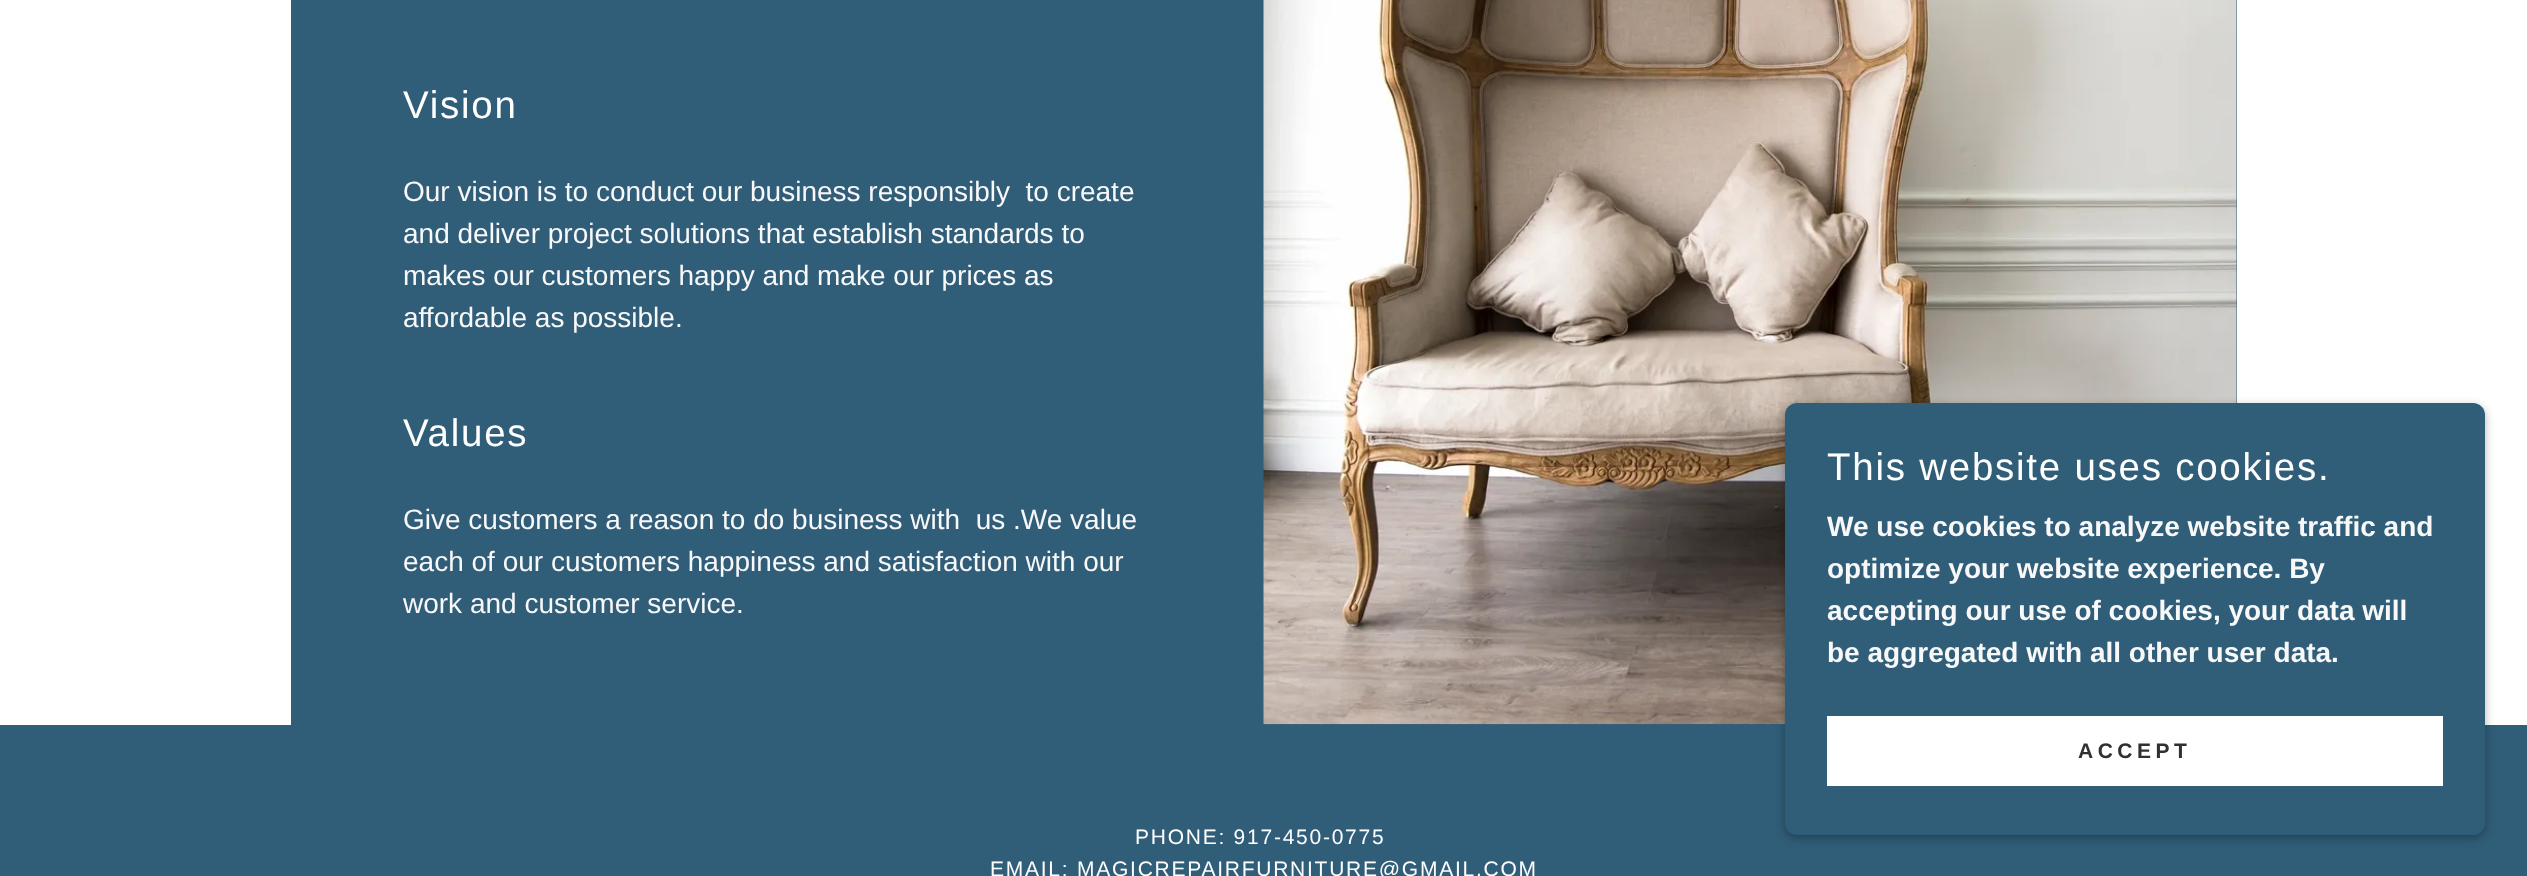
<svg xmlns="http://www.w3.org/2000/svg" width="2527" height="876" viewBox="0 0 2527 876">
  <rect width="100%" height="100%" fill="#305d78"/>
  <path d="M0 0h2527v725H0z" fill="#fff"/>
  <path d="M291 0h1946v725H291z" fill="#305d78"/>
  <image x="1263" y="0" width="974" height="725" href="img/1.png"/>
  <rect x="1785" y="406" width="700" height="432" rx="12" fill="#0000004d" filter="blur(5px)"/>
  <rect x="1785" y="403" width="700" height="432" rx="12" fill="#305d78"/>
  <path d="M1827 716h616v70H1827z" fill="#fff"/>
  <text x="403" y="118" font-family="Liberation Sans" font-size="38.5" letter-spacing="1.75" fill="#fefefe">Vision</text>
  <g font-family="Liberation Sans" font-size="28" fill="#f8f8f8">
    <text x="403" y="201" xml:space="preserve">Our vision is to conduct our business responsibly  to create</text>
    <text x="403" y="243">and deliver project solutions that establish standards to</text>
    <text x="403" y="285">makes our customers happy and make our prices as</text>
    <text x="403" y="327">affordable as possible.</text>
  </g>
  <text x="403" y="446" font-family="Liberation Sans" font-size="38.5" letter-spacing="1.75" fill="#fefefe">Values</text>
  <g font-family="Liberation Sans" font-size="28" fill="#f8f8f8">
    <text x="403" y="529" xml:space="preserve">Give customers a reason to do business with  us .We value</text>
    <text x="403" y="571">each of our customers happiness and satisfaction with our</text>
    <text x="403" y="613">work and customer service.</text>
  </g>
  <text x="1827" y="480" font-family="Liberation Sans" font-size="38.5" letter-spacing="1.75" fill="#fefefe">This website uses cookies.</text>
  <g font-family="Liberation Sans" font-size="28" font-weight="bold" fill="#f8f8f8">
    <text x="1827" y="536">We use cookies to analyze website traffic and</text>
    <text x="1827" y="578">optimize your website experience. By</text>
    <text x="1827" y="620">accepting our use of cookies, your data will</text>
    <text x="1827" y="662">be aggregated with all other user data.</text>
  </g>
  <text x="2078" y="758" font-family="Liberation Sans" font-size="21" font-weight="bold" letter-spacing="4.5" fill="#303030">ACCEPT</text>
  <g font-family="Liberation Sans" font-size="21" letter-spacing="1.75" fill="#fefefe">
    <text x="1135" y="844">PHONE: 917-450-0775</text>
    <text x="990" y="876">EMAIL:</text>
    <text x="1077" y="876">MAGICREPAIRFURNITURE@GMAIL.COM</text>
  </g>
</svg>
